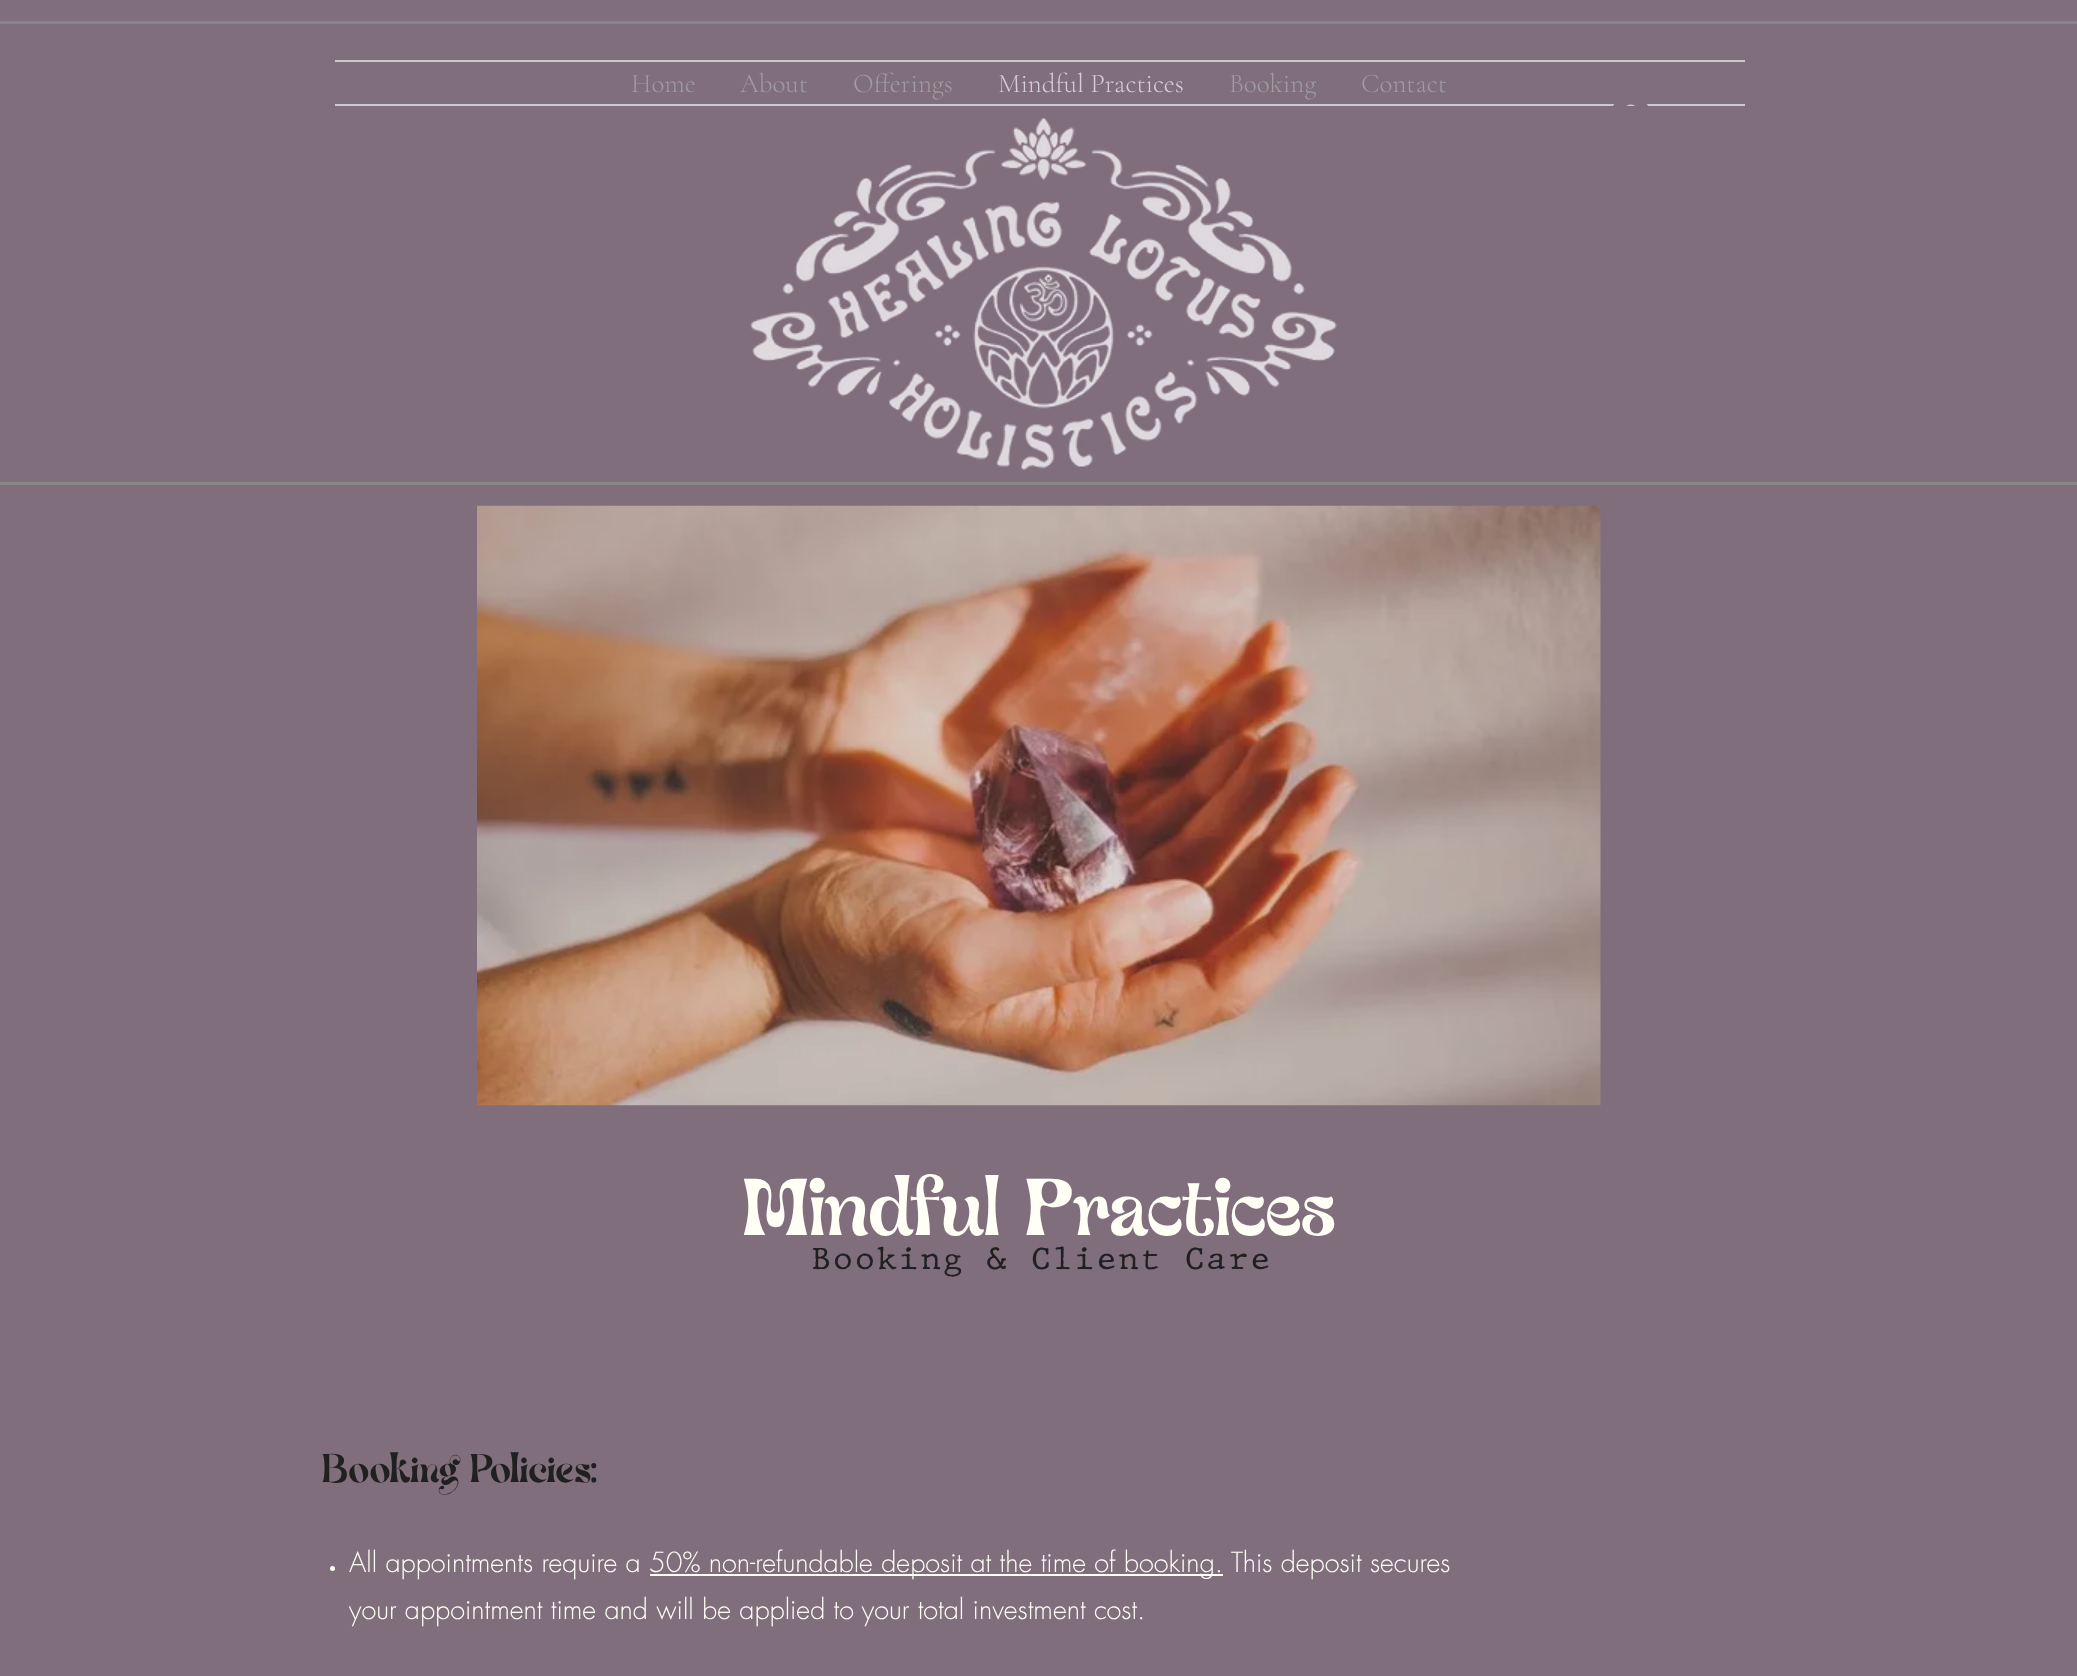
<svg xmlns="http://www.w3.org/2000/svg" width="2077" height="1676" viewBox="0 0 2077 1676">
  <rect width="100%" height="100%" fill="#816e7c"/>
  <path d="M0 21h2077v3H0z" fill="#878585"/>
  <path d="M0 482h2077v3H0z" fill="#878585"/>
  <path d="M335 60h1410v2H335z" fill="#cacaca"/>
  <path d="M335 104h1410v2H335z" fill="#cacaca"/>
  <image x="1613" y="104" width="35" height="2" href="img/1.png"/>
  <image x="750" y="118" width="587" height="353" href="img/2.png"/>
  <image x="477" y="505" width="1124" height="601" href="img/3.png"/>
  <circle cx="332.5" cy="1568.5" r="2.5" fill="#fffff6"/>
  <path d="M650 1574h573v2H650z" fill="#fffff6"/>
  <g font-family="Cormorant Garamond" font-size="27" font-weight="300" fill="#9e9e9e">
    <text x="631" y="92">Home</text>
    <text x="740" y="92">About</text>
    <text x="853" y="92">Offerings</text>
  </g>
  <text x="998" y="92" font-family="Cormorant Garamond" font-size="27" font-weight="300" fill="#d5ced4">Mindful Practices</text>
  <g font-family="Cormorant Garamond" font-size="27" font-weight="300" fill="#9e9e9e">
    <text x="1229" y="92">Booking</text>
    <text x="1361" y="92">Contact</text>
  </g>
  <text x="742" y="1235" font-family="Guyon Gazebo" font-size="75" fill="#fffff6">Mindful Practices</text>
  <text x="810" y="1269" font-family="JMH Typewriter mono" font-size="30" fill="#202020">Booking &amp; Client Care</text>
  <text x="322" y="1482" font-family="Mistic" font-size="42" fill="#202020">Booking Policies:</text>
  <g font-family="futura" font-size="27" font-weight="300" fill="#fffff6">
    <text x="349" y="1572">All appointments require a</text>
    <text x="649" y="1572">50% non-refundable deposit at the time of booking.</text>
    <text x="1231" y="1572">This deposit secures</text>
    <text x="349" y="1619">your appointment time and will be applied to your total investment cost.</text>
  </g>
</svg>
